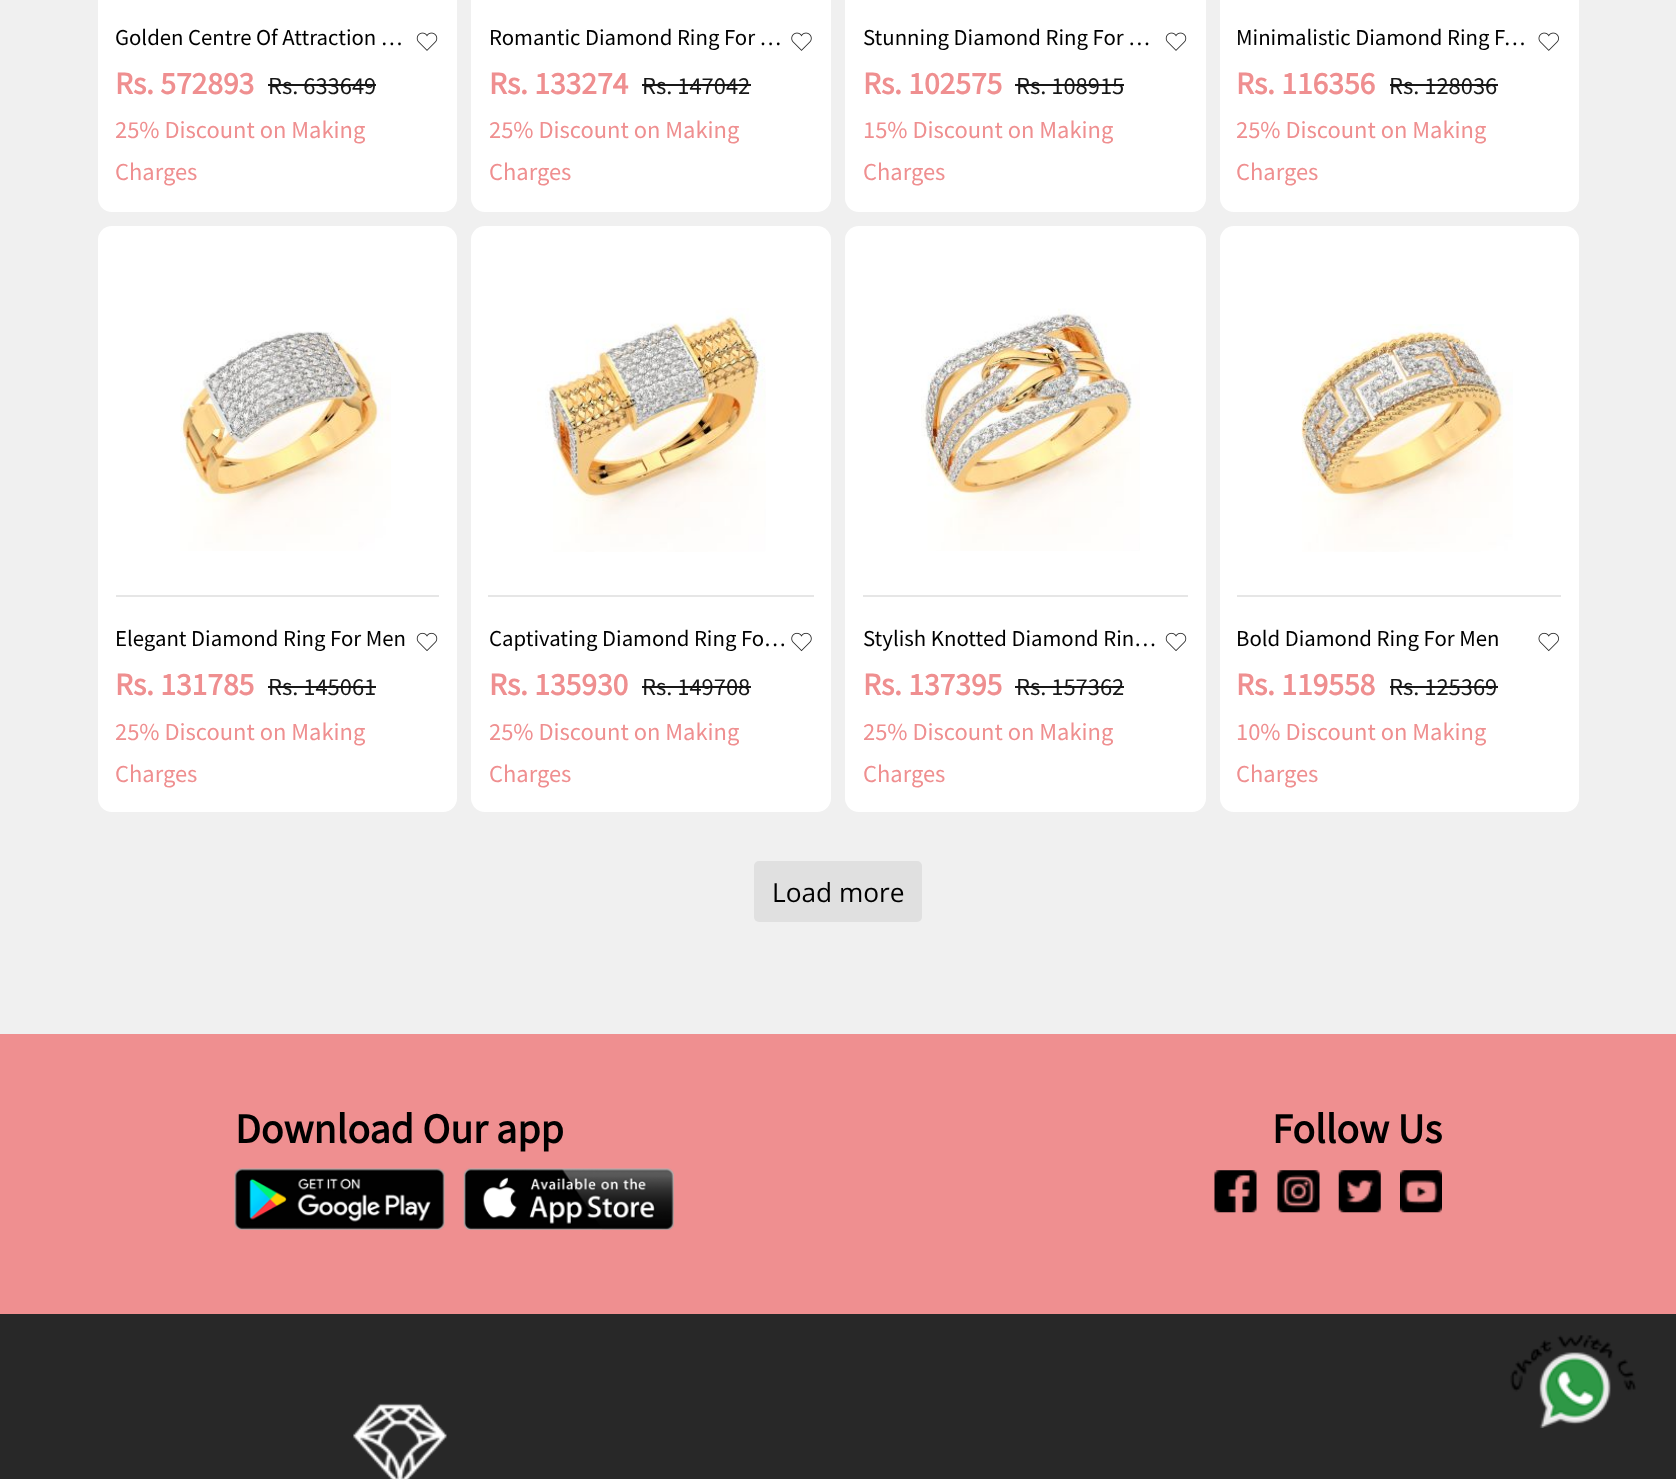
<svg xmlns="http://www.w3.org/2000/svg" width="1676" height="1479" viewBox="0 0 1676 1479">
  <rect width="100%" height="100%" fill="#f0f0f0"/>
  <rect x="98" y="-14" width="359" height="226" rx="14" fill="#fff"/>
  <image x="416" y="32" width="22" height="19" href="img/1.png"/>
  <path d="M268 84h108v2H268z" fill="#171717"/>
  <rect x="471" y="-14" width="360" height="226" rx="14" fill="#fff"/>
  <image x="791" y="32" width="21" height="19" href="img/2.png"/>
  <path d="M642 84h109v2H642z" fill="#171717"/>
  <rect x="845" y="-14" width="361" height="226" rx="14" fill="#fff"/>
  <image x="1165" y="32" width="22" height="19" href="img/1.png"/>
  <path d="M1015 84h109v2H1015z" fill="#171717"/>
  <rect x="1220" y="-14" width="359" height="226" rx="14" fill="#fff"/>
  <image x="1538" y="32" width="21" height="19" href="img/3.png"/>
  <path d="M1390 84h108v2H1390z" fill="#171717"/>
  <rect x="98" y="226" width="359" height="586" rx="14" fill="#fff"/>
  <image x="180" y="331" width="211" height="220" href="img/4.png"/>
  <path d="M116 595h323v2H116z" fill="#e6e6e6"/>
  <image x="416" y="632" width="22" height="19" href="img/5.png"/>
  <path d="M268 686h108v2H268z" fill="#171717"/>
  <rect x="471" y="226" width="360" height="586" rx="14" fill="#fff"/>
  <image x="537" y="308" width="229" height="244" href="img/6.png"/>
  <path d="M488 595h326v2H488z" fill="#e6e6e6"/>
  <image x="791" y="632" width="21" height="20" href="img/7.png"/>
  <path d="M642 686h109v2H642z" fill="#171717"/>
  <rect x="845" y="226" width="361" height="586" rx="14" fill="#fff"/>
  <image x="921" y="308" width="219" height="243" href="img/8.png"/>
  <path d="M863 595h325v2H863z" fill="#e6e6e6"/>
  <image x="1165" y="632" width="22" height="19" href="img/5.png"/>
  <path d="M1015 686h109v2H1015z" fill="#171717"/>
  <rect x="1220" y="226" width="359" height="586" rx="14" fill="#fff"/>
  <image x="1301" y="324" width="212" height="228" href="img/9.png"/>
  <path d="M1237 595h324v2H1237z" fill="#e6e6e6"/>
  <image x="1538" y="632" width="21" height="20" href="img/10.png"/>
  <path d="M1390 686h108v2H1390z" fill="#171717"/>
  <rect x="754" y="861" width="168" height="61" rx="5" fill="#e0e0e0"/>
  <path d="M0 1034h1676v280H0z" fill="#ef8f90"/>
  <image x="234" y="1168" width="211" height="62" href="img/11.png"/>
  <image x="463" y="1168" width="211" height="62" href="img/12.png"/>
  <image x="1214" y="1170" width="43" height="43" href="img/13.png"/>
  <image x="1277" y="1170" width="43" height="43" href="img/14.png"/>
  <image x="1338" y="1170" width="43" height="43" href="img/15.png"/>
  <image x="1400" y="1170" width="42" height="43" href="img/16.png"/>
  <path d="M0 1314h1676v165H0z" fill="#282828"/>
  <image x="353" y="1403" width="94" height="76" href="img/17.png"/>
  <image x="1510" y="1335" width="126" height="93" href="img/18.png"/>
  <text x="115" y="45" font-family="Source Sans Pro" font-size="22.75" fill="#000">Golden Centre Of Attraction …</text>
  <text x="115" y="94" font-family="Source Sans Pro" font-size="31.5" font-weight="bold" fill="#ef8f90">Rs. 572893</text>
  <text x="268" y="94" font-family="Source Sans Pro" font-size="24.5" fill="#171717">Rs. 633649</text>
  <g font-family="Source Sans Pro" font-size="24.5" fill="#ef8f90">
    <text x="115" y="138">25% Discount on Making</text>
    <text x="115" y="180">Charges</text>
  </g>
  <text x="489" y="45" font-family="Source Sans Pro" font-size="22.75" fill="#000">Romantic Diamond Ring For …</text>
  <text x="489" y="94" font-family="Source Sans Pro" font-size="31.5" font-weight="bold" fill="#ef8f90">Rs. 133274</text>
  <text x="642" y="94" font-family="Source Sans Pro" font-size="24.5" fill="#171717">Rs. 147042</text>
  <g font-family="Source Sans Pro" font-size="24.5" fill="#ef8f90">
    <text x="489" y="138">25% Discount on Making</text>
    <text x="489" y="180">Charges</text>
  </g>
  <text x="863" y="45" font-family="Source Sans Pro" font-size="22.75" fill="#000">Stunning Diamond Ring For …</text>
  <text x="863" y="94" font-family="Source Sans Pro" font-size="31.5" font-weight="bold" fill="#ef8f90">Rs. 102575</text>
  <text x="1016" y="94" font-family="Source Sans Pro" font-size="24.5" fill="#171717">Rs. 108915</text>
  <g font-family="Source Sans Pro" font-size="24.5" fill="#ef8f90">
    <text x="863" y="138">15% Discount on Making</text>
    <text x="863" y="180">Charges</text>
  </g>
  <text x="1236" y="45" font-family="Source Sans Pro" font-size="22.75" fill="#000">Minimalistic Diamond Ring F…</text>
  <text x="1236" y="94" font-family="Source Sans Pro" font-size="31.5" font-weight="bold" fill="#ef8f90">Rs. 116356</text>
  <text x="1389" y="94" font-family="Source Sans Pro" font-size="24.5" fill="#171717">Rs. 128036</text>
  <g font-family="Source Sans Pro" font-size="24.5" fill="#ef8f90">
    <text x="1236" y="138">25% Discount on Making</text>
    <text x="1236" y="180">Charges</text>
  </g>
  <text x="115" y="646" font-family="Source Sans Pro" font-size="22.75" fill="#000">Elegant Diamond Ring For Men</text>
  <text x="115" y="695" font-family="Source Sans Pro" font-size="31.5" font-weight="bold" fill="#ef8f90">Rs. 131785</text>
  <text x="268" y="695" font-family="Source Sans Pro" font-size="24.5" fill="#171717">Rs. 145061</text>
  <g font-family="Source Sans Pro" font-size="24.5" fill="#ef8f90">
    <text x="115" y="740">25% Discount on Making</text>
    <text x="115" y="782">Charges</text>
  </g>
  <text x="489" y="646" font-family="Source Sans Pro" font-size="22.75" fill="#000">Captivating Diamond Ring Fo…</text>
  <text x="489" y="695" font-family="Source Sans Pro" font-size="31.5" font-weight="bold" fill="#ef8f90">Rs. 135930</text>
  <text x="642" y="695" font-family="Source Sans Pro" font-size="24.5" fill="#171717">Rs. 149708</text>
  <g font-family="Source Sans Pro" font-size="24.5" fill="#ef8f90">
    <text x="489" y="740">25% Discount on Making</text>
    <text x="489" y="782">Charges</text>
  </g>
  <text x="863" y="646" font-family="Source Sans Pro" font-size="22.75" fill="#000">Stylish Knotted Diamond Rin…</text>
  <text x="863" y="695" font-family="Source Sans Pro" font-size="31.5" font-weight="bold" fill="#ef8f90">Rs. 137395</text>
  <text x="1016" y="695" font-family="Source Sans Pro" font-size="24.5" fill="#171717">Rs. 157362</text>
  <g font-family="Source Sans Pro" font-size="24.5" fill="#ef8f90">
    <text x="863" y="740">25% Discount on Making</text>
    <text x="863" y="782">Charges</text>
  </g>
  <text x="1236" y="646" font-family="Source Sans Pro" font-size="22.75" fill="#000">Bold Diamond Ring For Men</text>
  <text x="1236" y="695" font-family="Source Sans Pro" font-size="31.5" font-weight="bold" fill="#ef8f90">Rs. 119558</text>
  <text x="1389" y="695" font-family="Source Sans Pro" font-size="24.5" fill="#171717">Rs. 125369</text>
  <g font-family="Source Sans Pro" font-size="24.5" fill="#ef8f90">
    <text x="1236" y="740">10% Discount on Making</text>
    <text x="1236" y="782">Charges</text>
  </g>
  <text x="772" y="902" font-family="Open Sans" font-size="26.25" fill="#000">Load more</text>
  <g font-family="Source Sans Pro" font-size="42" font-weight="bold" fill="#000">
    <text x="235" y="1143">Download Our app</text>
    <text x="1272" y="1143">Follow Us</text>
  </g>
</svg>
